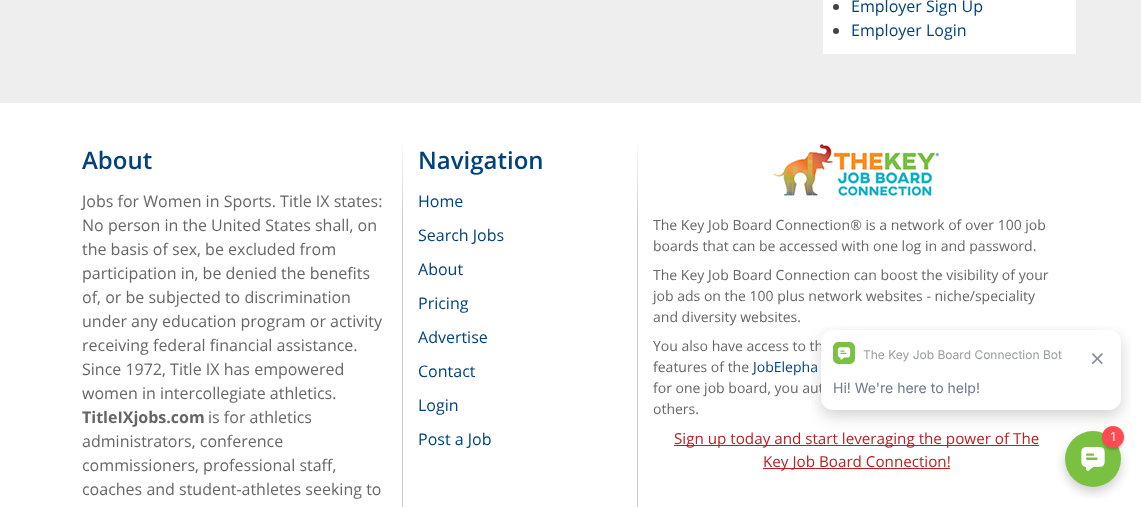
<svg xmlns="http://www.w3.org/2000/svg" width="1141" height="507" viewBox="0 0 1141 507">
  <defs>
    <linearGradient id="g1" gradientUnits="userSpaceOnUse" x1="402" y1="143" x2="403" y2="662"><stop offset="0" stop-color="#fafafa"/><stop offset="0.15" stop-color="#cacaca"/><stop offset="0.85" stop-color="#cacaca"/><stop offset="1" stop-color="#fafafa"/></linearGradient>
    <linearGradient id="g2" gradientUnits="userSpaceOnUse" x1="638" y1="143" x2="638" y2="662"><stop offset="0" stop-color="#fafafa"/><stop offset="0.15" stop-color="#cacaca"/><stop offset="0.85" stop-color="#cacaca"/><stop offset="1" stop-color="#fafafa"/></linearGradient>
  </defs>
  <rect width="100%" height="100%" fill="#eee"/>
  <path d="M823 0h253v54H823z" fill="#fff"/>
  <circle cx="836" cy="7" r="3" fill="#444"/>
  <circle cx="836" cy="31" r="3" fill="#444"/>
  <path d="M0 103h1141v404H0z" fill="#fff"/>
  <path d="M402 143h1v364H402z" fill="url(#g1)"/>
  <path d="M637 143h1v364H637z" fill="url(#g2)"/>
  <image x="774" y="144" width="165" height="52" href="img/1.png"/>
  <path d="M674 445h365v1H674z" fill="#b92022"/>
  <path d="M763 468h187v1H763z" fill="#b92022"/>
  <g font-family="Open Sans" font-size="16" fill="#00417e">
    <text x="851" y="12">Employer Sign Up</text>
    <text x="851" y="36">Employer Login</text>
  </g>
  <text x="82" y="169" font-family="Open Sans" font-size="24" font-weight="600" fill="#00417e">About</text>
  <g font-family="Open Sans" font-size="16" fill="#666">
    <text x="82" y="207">Jobs for Women in Sports. Title IX states:</text>
    <text x="82" y="231">No person in the United States shall, on</text>
    <text x="82" y="255">the basis of sex, be excluded from</text>
    <text x="82" y="279">participation in, be denied the benefits</text>
    <text x="82" y="303">of, or be subjected to discrimination</text>
    <text x="82" y="327">under any education program or activity</text>
    <text x="82" y="351">receiving federal financial assistance.</text>
    <text x="82" y="375">Since 1972, Title IX has empowered</text>
    <text x="82" y="399">women in intercollegiate athletics.</text>
  </g>
  <text x="82" y="423" font-family="Open Sans" font-size="16" font-weight="bold" fill="#666">TitleIXjobs.com</text>
  <g font-family="Open Sans" font-size="16" fill="#666">
    <text x="208" y="423">is for athletics</text>
    <text x="82" y="447">administrators, conference</text>
    <text x="82" y="471">commissioners, professional staff,</text>
    <text x="82" y="495">coaches and student-athletes seeking to</text>
  </g>
  <text x="418" y="169" font-family="Open Sans" font-size="24" font-weight="600" fill="#00417e">Navigation</text>
  <g font-family="Open Sans" font-size="16" fill="#00417e">
    <text x="418" y="207">Home</text>
    <text x="418" y="241">Search Jobs</text>
    <text x="418" y="275">About</text>
    <text x="418" y="309">Pricing</text>
    <text x="418" y="343">Advertise</text>
    <text x="418" y="377">Contact</text>
    <text x="418" y="411">Login</text>
    <text x="418" y="445">Post a Job</text>
  </g>
  <g font-family="Open Sans" font-size="14" fill="#666">
    <text x="653" y="230">The Key Job Board Connection® is a network of over 100 job</text>
    <text x="653" y="251">boards that can be accessed with one log in and password.</text>
    <text x="653" y="280">The Key Job Board Connection can boost the visibility of your</text>
    <text x="653" y="301">job ads on the 100 plus network websites - niche/speciality</text>
    <text x="653" y="322">and diversity websites.</text>
    <text x="653" y="351">You also have access to th</text>
    <text x="653" y="372">features of the</text>
  </g>
  <text x="753" y="372" font-family="Open Sans" font-size="14" fill="#00417e">JobElepha</text>
  <g font-family="Open Sans" font-size="14" fill="#666">
    <text x="653" y="393">for one job board, you aut</text>
    <text x="653" y="414">others.</text>
  </g>
  <g font-family="Open Sans" font-size="15.2" fill="#b92022">
    <text x="674" y="444">Sign up today and start leveraging the power of The</text>
    <text x="763" y="467">Key Job Board Connection!</text>
  </g>
  <image x="811" y="326" width="320" height="172" href="img/2.png"/>
</svg>
